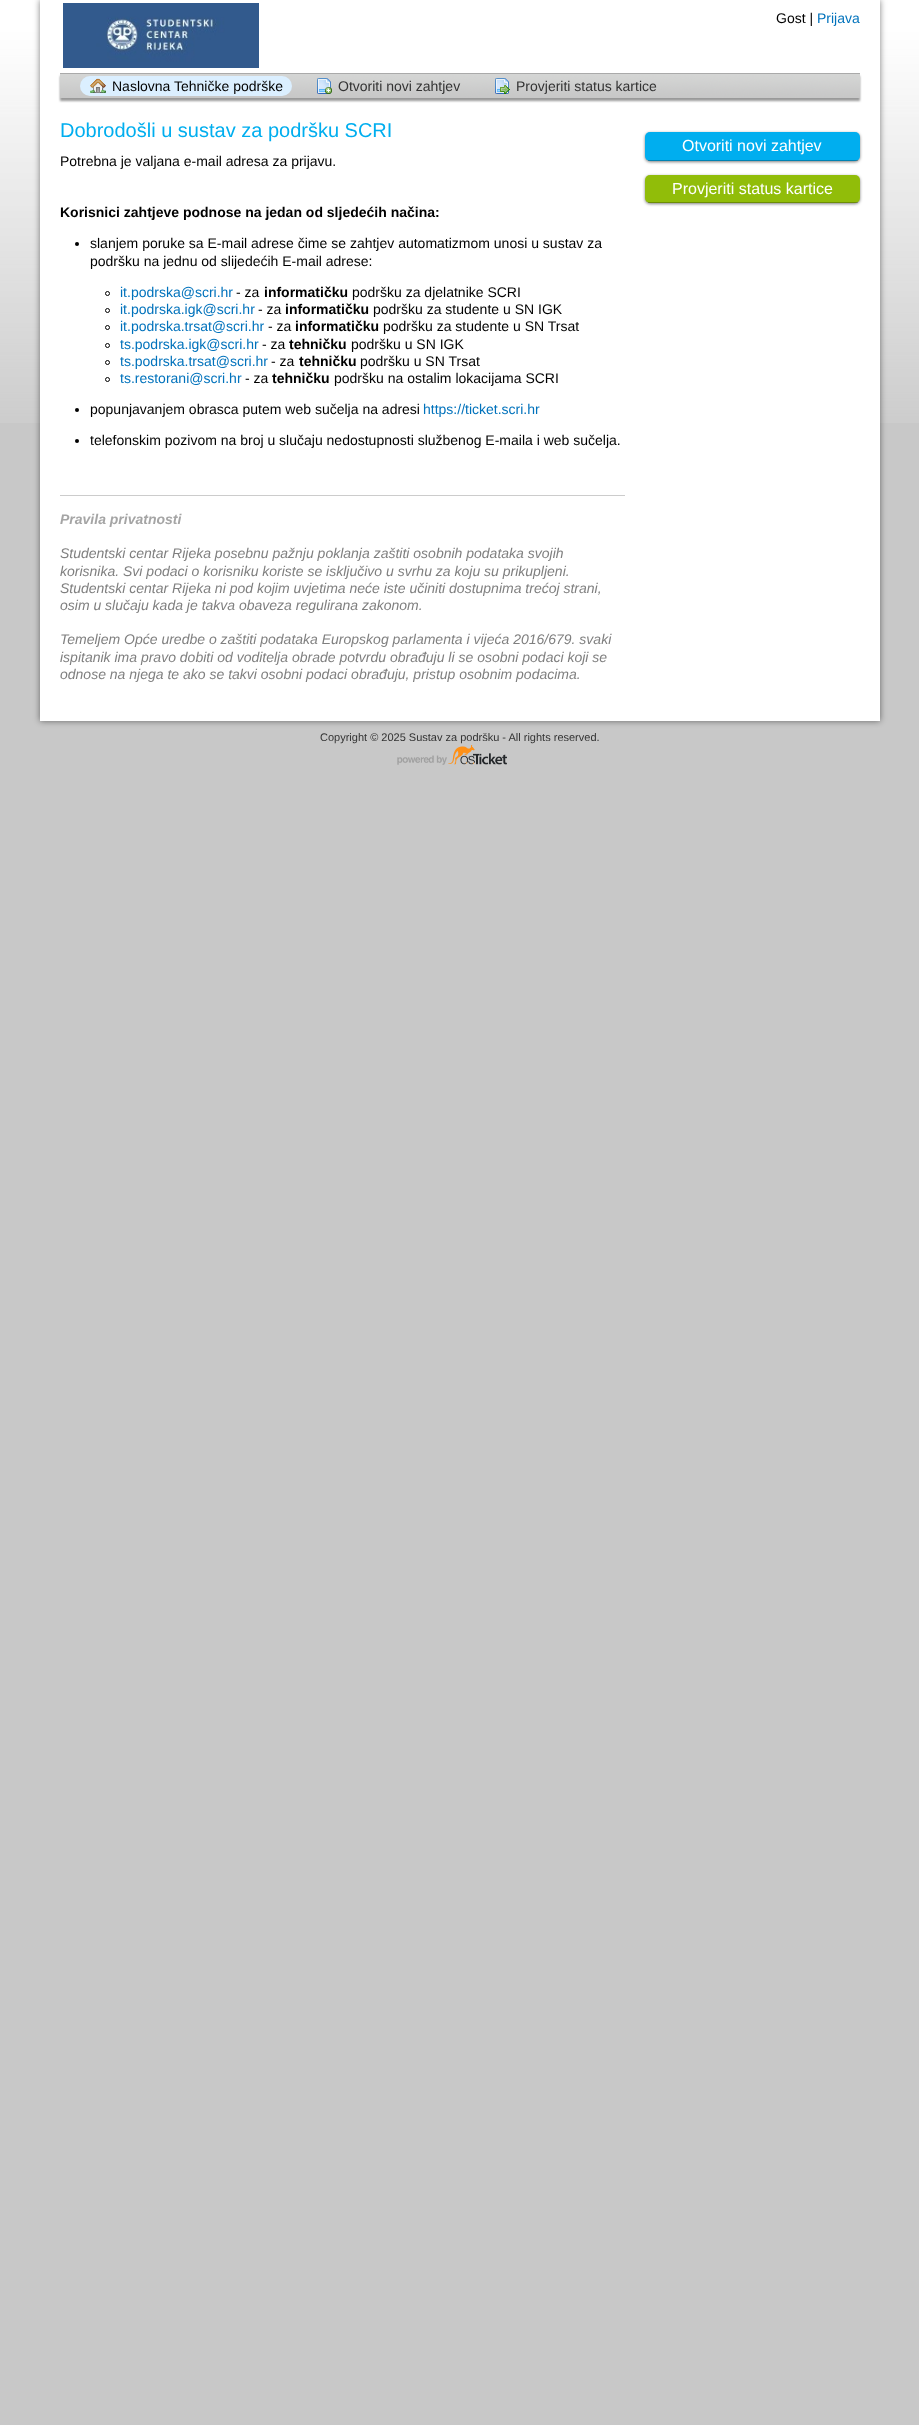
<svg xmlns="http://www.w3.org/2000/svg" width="919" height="2425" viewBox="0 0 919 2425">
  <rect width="100%" height="100%" fill="#c8c8c8"/>
  <image x="0" y="0" width="919" height="423" href="img/1.png"/>
  <path d="M40 0h840v721H40z" fill="#00000080" filter="blur(3px)"/>
  <path d="M40 0h840v721H40z" fill="#fff"/>
  <image x="63" y="3" width="196" height="65" href="img/2.png"/>
  <path d="M60 76h800v25H60z" fill="#00000066" filter="blur(1px)"/>
  <image x="60" y="74" width="800" height="24" href="img/3.png"/>
  <path d="M60 73h800v1H60z" fill="#aaa"/>
  <rect x="80" y="76" width="212" height="20" rx="10" fill="#dbefff"/>
  <image x="90" y="78" width="16" height="15" href="img/4.png"/>
  <image x="317" y="78" width="15" height="16" href="img/5.png"/>
  <image x="495" y="78" width="15" height="16" href="img/6.png"/>
  <circle cx="77" cy="244" r="2" fill="#000"/>
  <circle cx="107.5" cy="293.5" r="2" fill="none" stroke="#000"/>
  <circle cx="107.5" cy="310.5" r="2" fill="none" stroke="#000"/>
  <circle cx="107.5" cy="327.5" r="2" fill="none" stroke="#000"/>
  <circle cx="107.5" cy="345.5" r="2" fill="none" stroke="#000"/>
  <circle cx="107.5" cy="362.5" r="2" fill="none" stroke="#000"/>
  <circle cx="107.5" cy="379.5" r="2" fill="none" stroke="#000"/>
  <circle cx="77" cy="410" r="2" fill="#000"/>
  <circle cx="77" cy="441" r="2" fill="#000"/>
  <path d="M60 495h565v1H60z" fill="#ccc"/>
  <rect x="645" y="133" width="215" height="29" rx="5" fill="#00000080" filter="blur(1.5px)"/>
  <rect x="645" y="132" width="215" height="29" rx="5" fill="#00aeef"/>
  <path d="M648 160h210v1H648z" fill="#00000040"/>
  <rect x="645" y="176" width="215" height="28" rx="5" fill="#00000080" filter="blur(1.5px)"/>
  <rect x="645" y="175" width="215" height="28" rx="5" fill="#91bd09"/>
  <path d="M648 202h210v1H648z" fill="#00000040"/>
  <image x="397" y="745" width="110" height="20" href="img/7.png"/>
  <text x="776" y="23" font-family="Liberation Sans" font-size="14" fill="#000">Gost |</text>
  <text x="817" y="23" font-family="Liberation Sans" font-size="14" fill="#0072bc">Prijava</text>
  <text x="112" y="91" font-family="Liberation Sans" font-size="14" fill="#000">Naslovna Tehničke podrške</text>
  <g font-family="Liberation Sans" font-size="14" fill="#333">
    <text x="338" y="91">Otvoriti novi zahtjev</text>
    <text x="516" y="91">Provjeriti status kartice</text>
  </g>
  <text x="60" y="137" font-family="Liberation Sans" font-size="20" fill="#00aeef">Dobrodošli u sustav za podršku SCRI</text>
  <text x="60" y="166" font-family="Liberation Sans" font-size="14" fill="#000">Potrebna je valjana e-mail adresa za prijavu.</text>
  <text x="60" y="217" font-family="Liberation Sans" font-size="14" font-weight="bold" fill="#000">Korisnici zahtjeve podnose na jedan od sljedećih načina:</text>
  <g font-family="Liberation Sans" font-size="14" fill="#000">
    <text x="90" y="248">slanjem poruke sa E-mail adrese čime se zahtjev automatizmom unosi u sustav za</text>
    <text x="90" y="266">podršku na jednu od slijedećih E-mail adrese:</text>
  </g>
  <text x="120" y="297" font-family="Liberation Sans" font-size="14" fill="#0072bc">it.podrska@scri.hr</text>
  <text x="236" y="297" font-family="Liberation Sans" font-size="14" fill="#000">- za</text>
  <text x="264" y="297" font-family="Liberation Sans" font-size="14" font-weight="bold" fill="#000">informatičku</text>
  <text x="352" y="297" font-family="Liberation Sans" font-size="14" fill="#000">podršku za djelatnike SCRI</text>
  <text x="120" y="314" font-family="Liberation Sans" font-size="14" fill="#0072bc">it.podrska.igk@scri.hr</text>
  <text x="258" y="314" font-family="Liberation Sans" font-size="14" fill="#000">- za</text>
  <text x="285" y="314" font-family="Liberation Sans" font-size="14" font-weight="bold" fill="#000">informatičku</text>
  <text x="373" y="314" font-family="Liberation Sans" font-size="14" fill="#000">podršku za studente u SN IGK</text>
  <text x="120" y="331" font-family="Liberation Sans" font-size="14" fill="#0072bc">it.podrska.trsat@scri.hr</text>
  <text x="268" y="331" font-family="Liberation Sans" font-size="14" fill="#000">- za</text>
  <text x="295" y="331" font-family="Liberation Sans" font-size="14" font-weight="bold" fill="#000">informatičku</text>
  <text x="383" y="331" font-family="Liberation Sans" font-size="14" fill="#000">podršku za studente u SN Trsat</text>
  <text x="120" y="349" font-family="Liberation Sans" font-size="14" fill="#0072bc">ts.podrska.igk@scri.hr</text>
  <text x="262" y="349" font-family="Liberation Sans" font-size="14" fill="#000">- za</text>
  <text x="289" y="349" font-family="Liberation Sans" font-size="14" font-weight="bold" fill="#000">tehničku</text>
  <text x="351" y="349" font-family="Liberation Sans" font-size="14" fill="#000">podršku u SN IGK</text>
  <text x="120" y="366" font-family="Liberation Sans" font-size="14" fill="#0072bc">ts.podrska.trsat@scri.hr</text>
  <text x="271" y="366" font-family="Liberation Sans" font-size="14" fill="#000">- za</text>
  <text x="299" y="366" font-family="Liberation Sans" font-size="14" font-weight="bold" fill="#000">tehničku</text>
  <text x="360" y="366" font-family="Liberation Sans" font-size="14" fill="#000">podršku u SN Trsat</text>
  <text x="120" y="383" font-family="Liberation Sans" font-size="14" fill="#0072bc">ts.restorani@scri.hr</text>
  <text x="245" y="383" font-family="Liberation Sans" font-size="14" fill="#000">- za</text>
  <text x="272" y="383" font-family="Liberation Sans" font-size="14" font-weight="bold" fill="#000">tehničku</text>
  <g font-family="Liberation Sans" font-size="14" fill="#000">
    <text x="334" y="383">podršku na ostalim lokacijama SCRI</text>
    <text x="90" y="414">popunjavanjem obrasca putem web sučelja na adresi</text>
  </g>
  <text x="423" y="414" font-family="Liberation Sans" font-size="14" fill="#0072bc">https://ticket.scri.hr</text>
  <text x="90" y="445" font-family="Liberation Sans" font-size="14" fill="#000">telefonskim pozivom na broj u slučaju nedostupnosti službenog E-maila i web sučelja.</text>
  <text x="60" y="524" font-family="Liberation Sans" font-size="14" font-weight="bold" font-style="italic" fill="#a5a5a5">Pravila privatnosti</text>
  <g font-family="Liberation Sans" font-size="14" font-style="italic" fill="#7f7f7f">
    <text x="60" y="558">Studentski centar Rijeka posebnu pažnju poklanja zaštiti osobnih podataka svojih</text>
    <text x="60" y="576">korisnika. Svi podaci o korisniku koriste se isključivo u svrhu za koju su prikupljeni.</text>
    <text x="60" y="593">Studentski centar Rijeka ni pod kojim uvjetima neće iste učiniti dostupnima trećoj strani,</text>
    <text x="60" y="610">osim u slučaju kada je takva obaveza regulirana zakonom.</text>
    <text x="60" y="644">Temeljem Opće uredbe o zaštiti podataka Europskog parlamenta i vijeća 2016/679. svaki</text>
    <text x="60" y="662">ispitanik ima pravo dobiti od voditelja obrade potvrdu obrađuju li se osobni podaci koji se</text>
    <text x="60" y="679">odnose na njega te ako se takvi osobni podaci obrađuju, pristup osobnim podacima.</text>
  </g>
  <g font-family="Liberation Sans" font-size="16" fill="#fff">
    <text x="682" y="151">Otvoriti novi zahtjev</text>
    <text x="672" y="194">Provjeriti status kartice</text>
  </g>
  <text x="320" y="741" font-family="Liberation Sans" font-size="11" fill="#333">Copyright © 2025 Sustav za podršku - All rights reserved.</text>
</svg>
